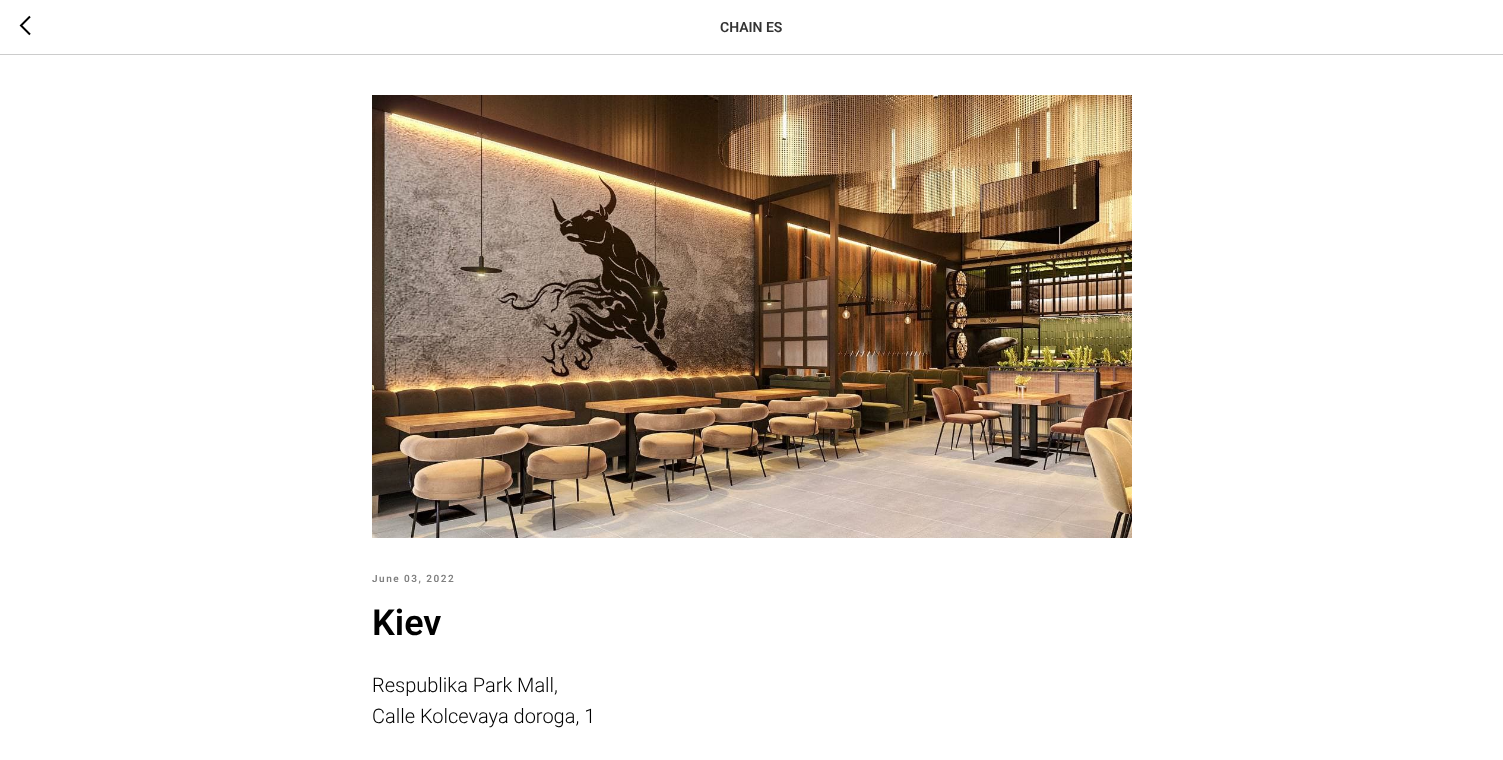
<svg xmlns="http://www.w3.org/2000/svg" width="1503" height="760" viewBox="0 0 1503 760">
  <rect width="100%" height="100%" fill="#fff"/>
  <path d="M0 54h1503v1H0z" fill="#ccc"/>
  <path d="M30 34.5L21 25.5L30 16.5" fill="none" stroke="#000" stroke-width="2"/>
  <image x="372" y="95" width="760" height="443" href="img/1.png"/>
  <text x="720" y="32" font-family="Roboto" font-size="14" font-weight="600" fill="#333">CHAIN ES</text>
  <text x="372" y="582" font-family="Roboto" font-size="10" font-weight="600" letter-spacing="1.5" fill="#808080">June 03, 2022</text>
  <text x="372" y="635" font-family="Roboto" font-size="36" font-weight="600" fill="#000">Kiev</text>
  <g font-family="Roboto" font-size="20" font-weight="300" fill="#000">
    <text x="372" y="692">Respublika Park Mall,</text>
    <text x="372" y="723">Calle Kolcevaya doroga, 1</text>
  </g>
</svg>
